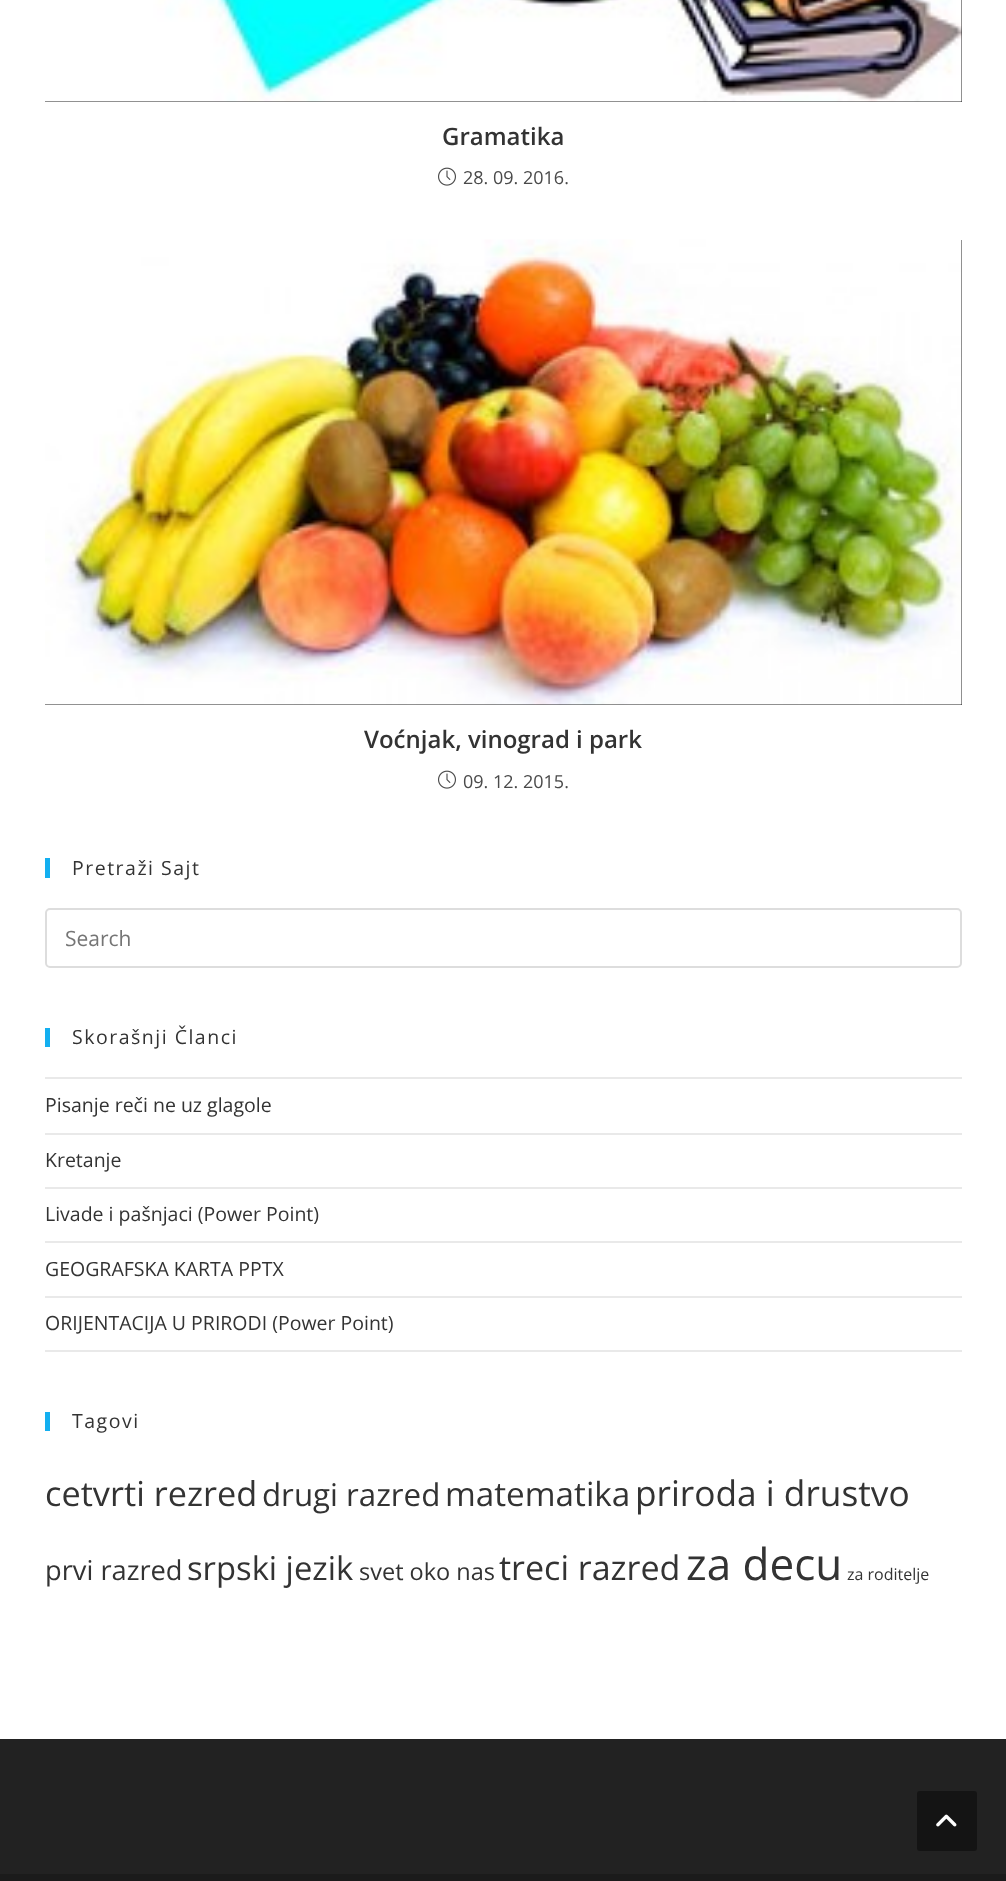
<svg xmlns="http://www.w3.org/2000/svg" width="1006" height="1881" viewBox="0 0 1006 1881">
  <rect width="100%" height="100%" fill="#fff"/>
  <path d="M45 0h917v102H45z" fill="#222"/>
  <image x="45" y="0" width="917" height="102" href="img/1.png"/>
  <image x="438" y="167" width="18" height="19" href="img/2.png"/>
  <path d="M45 240h917v465H45z" fill="#222"/>
  <image x="45" y="239" width="917" height="466" href="img/3.png"/>
  <image x="438" y="770" width="18" height="19" href="img/2.png"/>
  <path d="M45 858h5v20H45z" fill="#13aff0"/>
  <rect x="46" y="909" width="915" height="58" rx="4" fill="none" stroke="#ddd" stroke-width="2"/>
  <path d="M45 1028h5v19H45z" fill="#13aff0"/>
  <path d="M45 1077h917v2H45z" fill="#e9e9e9"/>
  <path d="M45 1133h917v2H45z" fill="#e9e9e9"/>
  <path d="M45 1187h917v2H45z" fill="#e9e9e9"/>
  <path d="M45 1241h917v2H45z" fill="#e9e9e9"/>
  <path d="M45 1296h917v2H45z" fill="#e9e9e9"/>
  <path d="M45 1350h917v2H45z" fill="#e9e9e9"/>
  <path d="M45 1412h5v19H45z" fill="#13aff0"/>
  <path d="M0 1739h1006v135H0z" fill="#222"/>
  <path d="M0 1874h1006v7H0z" fill="#1b1b1b"/>
  <rect x="917" y="1791" width="60" height="60" rx="3" fill="#141414"/>
  <image x="936" y="1814" width="21" height="13" href="img/4.png"/>
  <text x="442" y="145" font-family="Open Sans" font-size="24" font-weight="600" fill="#333">Gramatika</text>
  <text x="463" y="184" font-family="Open Sans" font-size="18" fill="#4a4a4a">28. 09. 2016.</text>
  <text x="364" y="748" font-family="Open Sans" font-size="24" font-weight="600" fill="#333">Voćnjak, vinograd i park</text>
  <text x="463" y="788" font-family="Open Sans" font-size="18" fill="#4a4a4a">09. 12. 2015.</text>
  <text x="72" y="875" font-family="Open Sans" font-size="19.5" letter-spacing="1.5" fill="#333">Pretraži Sajt</text>
  <text x="65" y="946" font-family="Open Sans" font-size="21" fill="#757575">Search</text>
  <text x="72" y="1044" font-family="Open Sans" font-size="19.5" letter-spacing="1.5" fill="#333">Skorašnji Članci</text>
  <g font-family="Open Sans" font-size="19.5" fill="#333">
    <text x="45" y="1112">Pisanje reči ne uz glagole</text>
    <text x="45" y="1167">Kretanje</text>
    <text x="45" y="1221">Livade i pašnjaci (Power Point)</text>
    <text x="45" y="1276">GEOGRAFSKA KARTA PPTX</text>
    <text x="45" y="1330">ORIJENTACIJA U PRIRODI (Power Point)</text>
  </g>
  <text x="72" y="1428" font-family="Open Sans" font-size="19.5" letter-spacing="1.5" fill="#333">Tagovi</text>
  <text x="45" y="1506" font-family="Open Sans" font-size="34.25" fill="#333">cetvrti rezred</text>
  <text x="262" y="1506" font-family="Open Sans" font-size="31.25" fill="#333">drugi razred</text>
  <text x="445" y="1506" font-family="Open Sans" font-size="33.25" fill="#333">matematika</text>
  <text x="635" y="1506" font-family="Open Sans" font-size="35.25" fill="#333">priroda i drustvo</text>
  <text x="45" y="1580" font-family="Open Sans" font-size="27.25" fill="#333">prvi razred</text>
  <text x="187" y="1580" font-family="Open Sans" font-size="32.75" fill="#333">srpski jezik</text>
  <text x="359" y="1580" font-family="Open Sans" font-size="23.5" fill="#333">svet oko nas</text>
  <text x="499" y="1580" font-family="Open Sans" font-size="34" fill="#333">treci razred</text>
  <text x="686" y="1580" font-family="Open Sans" font-size="44" fill="#333">za decu</text>
  <text x="847" y="1580" font-family="Open Sans" font-size="16" fill="#333">za roditelje</text>
</svg>
